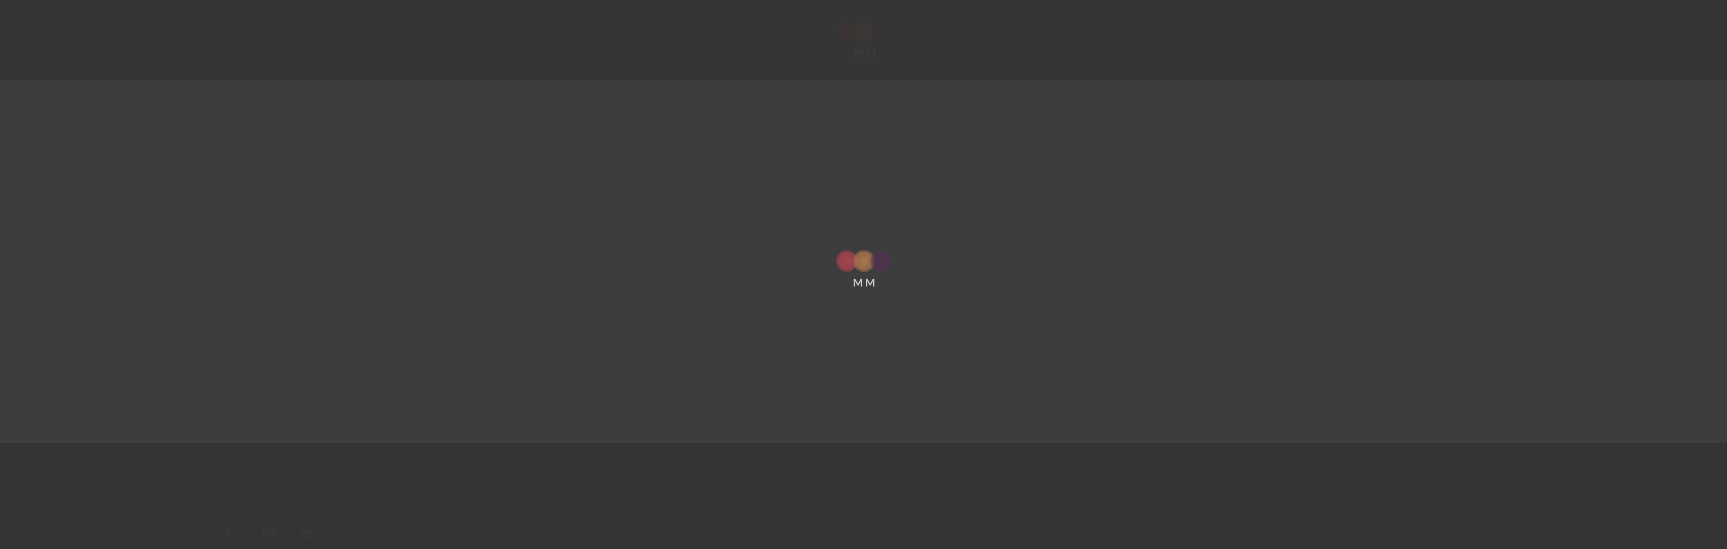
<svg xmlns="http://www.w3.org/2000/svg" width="1727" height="549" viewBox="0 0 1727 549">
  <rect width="100%" height="100%" fill="#3d3d3d"/>
  <path d="M0 0h1727v80H0z" fill="#353535"/>
  <image x="837" y="20" width="56" height="37" href="img/1.png"/>
  <image x="836" y="250" width="56" height="37" href="img/2.png"/>
  <path d="M0 443h1727v106H0z" fill="#343434"/>
  <image x="224" y="523" width="9" height="16" href="img/3.png"/>
  <image x="262" y="524" width="14" height="14" href="img/4.png"/>
  <image x="300" y="523" width="14" height="17" href="img/5.png"/>
</svg>
